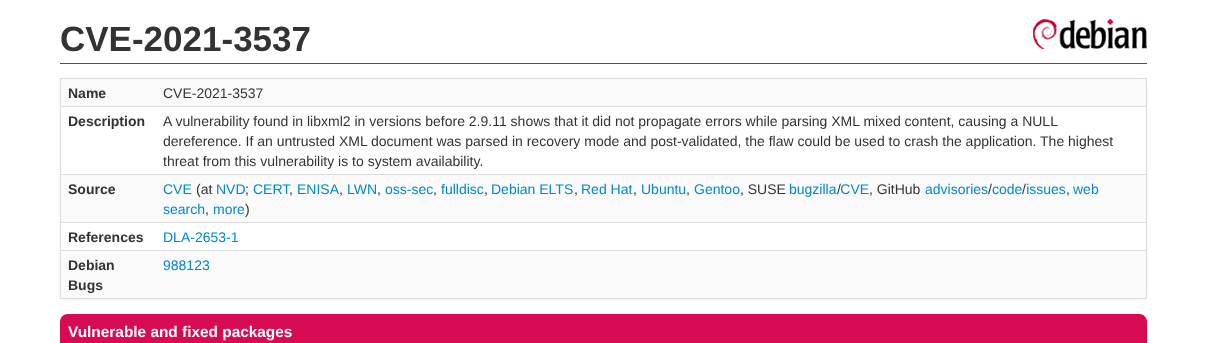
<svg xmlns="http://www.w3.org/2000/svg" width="1207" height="343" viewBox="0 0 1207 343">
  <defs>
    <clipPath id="clip1"><path d="M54 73H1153V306H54ZM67 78H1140C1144 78 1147 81 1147 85V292C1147 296 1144 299 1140 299H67C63 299 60 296 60 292V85C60 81 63 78 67 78Z" clip-rule="evenodd"/></clipPath>
  </defs>
  <rect width="100%" height="100%" fill="#fff"/>
  <image x="1033" y="19" width="114" height="30" href="img/1.png"/>
  <path d="M60 63h1087v1H60z" fill="#d70a53"/>
  <g clip-path="url(#clip1)">
    <rect x="60" y="79" width="1087" height="221" rx="7" fill="#eee" filter="blur(1.5px)"/>
  </g>
  <path d="M60 78h1087v1H60z" fill="#ddd"/>
  <path d="M1146 78h1v221H1146z" fill="#ddd"/>
  <path d="M60 298h1087v1H60z" fill="#ddd"/>
  <path d="M60 78h1v221H60z" fill="#ddd"/>
  <path d="M61 79h1085v27H61z" fill="#fafafa"/>
  <path d="M60 106h1087v1H60z" fill="#ddd"/>
  <path d="M60 174h1087v1H60z" fill="#ddd"/>
  <path d="M61 175h1085v47H61z" fill="#fafafa"/>
  <path d="M60 222h1087v1H60z" fill="#ddd"/>
  <path d="M60 250h1087v1H60z" fill="#ddd"/>
  <path d="M61 251h1085v47H61z" fill="#fafafa"/>
  <path d="M68 314H1139C1143.5 314 1147 317.5 1147 322V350H60V322C60 317.5 63.5 314 68 314Z" fill="#d70a53"/>
  <text x="60" y="51" font-family="Liberation Sans" font-size="35" font-weight="bold" fill="#333">CVE-2021-3537</text>
  <text x="68" y="98" font-family="Liberation Sans" font-size="14" font-weight="bold" fill="#333">Name</text>
  <text x="163" y="98" font-family="Liberation Sans" font-size="14" fill="#333">CVE-2021-3537</text>
  <text x="68" y="126" font-family="Liberation Sans" font-size="14" font-weight="bold" fill="#333">Description</text>
  <g font-family="Liberation Sans" font-size="14" fill="#333">
    <text x="163" y="126">A vulnerability found in libxml2 in versions before 2.9.11 shows that it did not propagate errors while parsing XML mixed content, causing a NULL</text>
    <text x="163" y="146">dereference. If an untrusted XML document was parsed in recovery mode and post-validated, the flaw could be used to crash the application. The highest</text>
    <text x="163" y="166">threat from this vulnerability is to system availability.</text>
  </g>
  <text x="68" y="194" font-family="Liberation Sans" font-size="14" font-weight="bold" fill="#333">Source</text>
  <text x="196" y="194" font-family="Liberation Sans" font-size="14" fill="#333">(at</text>
  <g font-family="Liberation Sans" font-size="14" fill="#08c">
    <text x="441" y="194">fulldisc</text>
    <text x="491" y="194">Debian ELTS</text>
    <text x="581" y="194">Red Hat</text>
    <text x="641" y="194">Ubuntu</text>
    <text x="789" y="194">bugzilla CVE</text>
  </g>
  <g font-family="Liberation Sans" font-size="14" fill="#333">
    <text x="837" y="194">/</text>
    <text x="869" y="194">, GitHub</text>
  </g>
  <g font-family="Liberation Sans" font-size="14" fill="#08c">
    <text x="925" y="194">advisories code issues</text>
    <text x="163" y="194">CVE</text>
    <text x="216" y="194">NVD</text>
  </g>
  <text x="245" y="194" font-family="Liberation Sans" font-size="14" fill="#333">;</text>
  <text x="253" y="194" font-family="Liberation Sans" font-size="14" fill="#08c">CERT</text>
  <text x="289" y="194" font-family="Liberation Sans" font-size="14" fill="#333">,</text>
  <text x="297" y="194" font-family="Liberation Sans" font-size="14" fill="#08c">ENISA</text>
  <text x="339" y="194" font-family="Liberation Sans" font-size="14" fill="#333">,</text>
  <text x="347" y="194" font-family="Liberation Sans" font-size="14" fill="#08c">LWN</text>
  <text x="377" y="194" font-family="Liberation Sans" font-size="14" fill="#333">,</text>
  <text x="385" y="194" font-family="Liberation Sans" font-size="14" fill="#08c">oss-sec</text>
  <g font-family="Liberation Sans" font-size="14" fill="#333">
    <text x="433" y="194">,</text>
    <text x="484" y="194">,</text>
    <text x="574" y="194">,</text>
    <text x="633" y="194">,</text>
    <text x="686" y="194">,</text>
  </g>
  <text x="694" y="194" font-family="Liberation Sans" font-size="14" fill="#08c">Gentoo</text>
  <g font-family="Liberation Sans" font-size="14" fill="#333">
    <text x="740" y="194">, SUSE</text>
    <text x="988" y="194">/</text>
    <text x="1022" y="194">/</text>
    <text x="1066" y="194">,</text>
  </g>
  <g font-family="Liberation Sans" font-size="14" fill="#08c">
    <text x="1073" y="194">web</text>
    <text x="163" y="214">search</text>
  </g>
  <text x="205" y="214" font-family="Liberation Sans" font-size="14" fill="#333">,</text>
  <text x="213" y="214" font-family="Liberation Sans" font-size="14" fill="#08c">more</text>
  <text x="245" y="214" font-family="Liberation Sans" font-size="14" fill="#333">)</text>
  <text x="68" y="242" font-family="Liberation Sans" font-size="14" font-weight="bold" fill="#333">References</text>
  <text x="163" y="242" font-family="Liberation Sans" font-size="14" fill="#08c">DLA-2653-1</text>
  <g font-family="Liberation Sans" font-size="14" font-weight="bold" fill="#333">
    <text x="68" y="270">Debian</text>
    <text x="68" y="290">Bugs</text>
  </g>
  <text x="163" y="270" font-family="Liberation Sans" font-size="14" fill="#08c">988123</text>
  <text x="68" y="337" font-family="Liberation Sans" font-size="15.4" font-weight="bold" fill="#fff">Vulnerable and fixed packages</text>
</svg>
